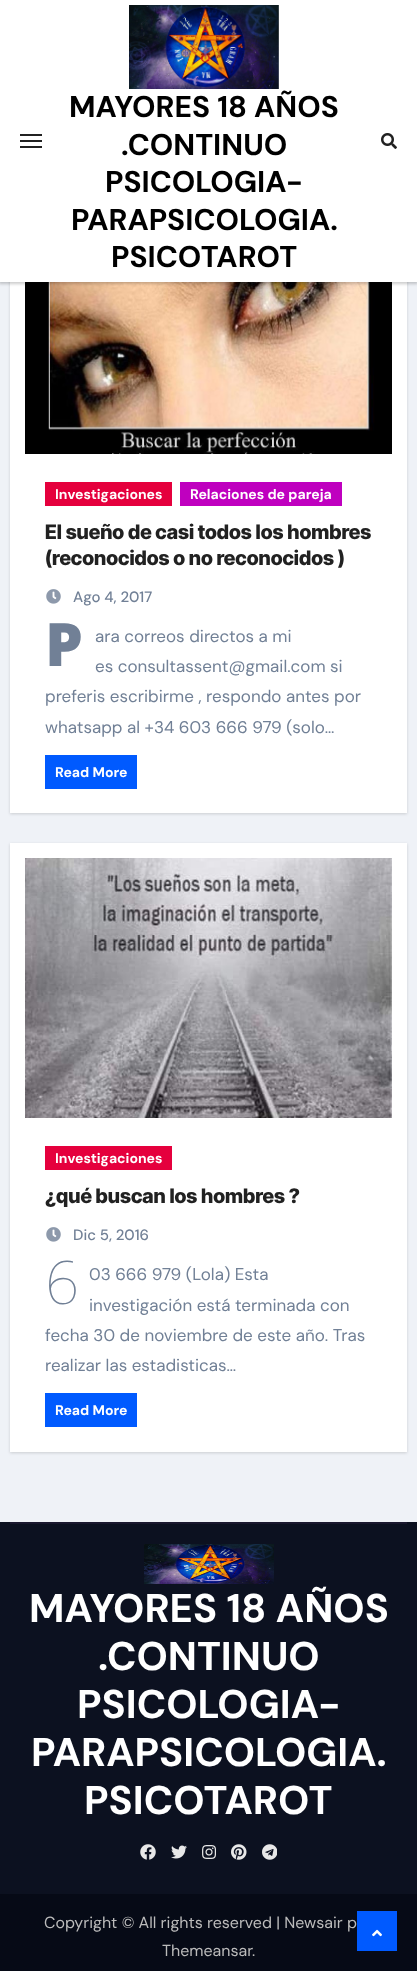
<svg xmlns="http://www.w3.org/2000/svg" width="417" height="1971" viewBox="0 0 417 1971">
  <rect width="100%" height="100%" fill="#eff2f7"/>
  <path d="M10 180h397v634H10z" fill="#00000026" filter="blur(1.5px)"/>
  <path d="M10 282h397v531H10z" fill="#fff"/>
  <image x="25" y="282" width="367" height="172" href="img/3.png"/>
  <path d="M-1 0h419v284H-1z" fill="#00000033" filter="blur(1.5px)"/>
  <path d="M0 0h417v282H0z" fill="#fff"/>
  <path d="M20 134h22v2H20z" fill="#212121"/>
  <path d="M20 140h22v2H20z" fill="#212121"/>
  <path d="M20 146h22v2H20z" fill="#212121"/>
  <image x="129" y="5" width="150" height="84" href="img/1.png"/>
  <image x="381" y="133" width="16" height="16" href="img/2.png"/>
  <path d="M45 482h127v24H45z" fill="#e5003d"/>
  <path d="M180 482h162v24H180z" fill="#bf00bf"/>
  <image x="46" y="589" width="15" height="15" href="img/4.png"/>
  <path d="M45 755h92v34H45z" fill="#005aff"/>
  <path d="M10 844h397v609H10z" fill="#00000026" filter="blur(1.5px)"/>
  <path d="M10 843h397v609H10z" fill="#fff"/>
  <image x="25" y="858" width="367" height="260" href="img/5.png"/>
  <path d="M45 1146h127v24H45z" fill="#e5003d"/>
  <image x="46" y="1227" width="15" height="15" href="img/4.png"/>
  <path d="M45 1393h92v34H45z" fill="#005aff"/>
  <path d="M0 1522h417v372H0z" fill="#0c1120"/>
  <path d="M10 1522h397v2H10z" fill="#1a182e"/>
  <image x="144" y="1544" width="130" height="40" href="img/6.png"/>
  <image x="140" y="1844" width="16" height="16" href="img/7.png"/>
  <image x="171" y="1845" width="16" height="14" href="img/8.png"/>
  <image x="202" y="1845" width="14" height="14" href="img/9.png"/>
  <image x="231" y="1844" width="16" height="16" href="img/10.png"/>
  <image x="262" y="1844" width="15" height="16" href="img/11.png"/>
  <path d="M0 1894h417v77H0z" fill="#060a16"/>
  <path d="M357 1911h40v40H357z" fill="#005aff"/>
  <image x="372" y="1929" width="10" height="8" href="img/12.png"/>
  <g font-family="DM Sans" font-size="30" font-weight="bold" fill="#000">
    <text x="69" y="117">MAYORES 18 AÑOS</text>
    <text x="121" y="155">.CONTINUO</text>
    <text x="105" y="192">PSICOLOGIA-</text>
    <text x="71" y="230">PARAPSICOLOGIA.</text>
    <text x="111" y="267">PSICOTAROT</text>
  </g>
  <g font-family="DM Sans" font-size="14" font-weight="bold" fill="#fff">
    <text x="55" y="499">Investigaciones</text>
    <text x="190" y="499">Relaciones de pareja</text>
  </g>
  <g font-family="Inter Tight" font-size="20" font-weight="800" fill="#212121">
    <text x="45" y="539">El sueño de casi todos los hombres</text>
    <text x="45" y="565">(reconocidos o no reconocidos )</text>
  </g>
  <text x="73" y="602" font-family="DM Sans" font-size="15" font-weight="500" fill="#718096">Ago 4, 2017</text>
  <text x="45" y="666" font-family="Noto Sans" font-size="60" font-weight="900" fill="#718096">P</text>
  <g font-family="DM Sans" font-size="17" fill="#718096">
    <text x="95" y="642">ara correos directos a mi</text>
    <text x="95" y="672">es consultassent@gmail.com si</text>
    <text x="45" y="702">preferis escribirme , respondo antes por</text>
    <text x="45" y="733">whatsapp al +34 603 666 979 (solo…</text>
  </g>
  <g font-family="DM Sans" font-size="14" font-weight="bold" fill="#fff">
    <text x="55" y="777">Read More</text>
    <text x="55" y="1163">Investigaciones</text>
  </g>
  <text x="45" y="1203" font-family="Inter Tight" font-size="20" font-weight="800" fill="#212121">¿qué buscan los hombres ?</text>
  <text x="73" y="1240" font-family="DM Sans" font-size="15" font-weight="500" fill="#718096">Dic 5, 2016</text>
  <text x="45" y="1304" font-family="Noto Sans" font-size="60" font-weight="100" fill="#718096">6</text>
  <g font-family="DM Sans" font-size="17" fill="#718096">
    <text x="89" y="1280">03 666 979 (Lola) Esta</text>
    <text x="89" y="1311">investigación está terminada con</text>
    <text x="45" y="1341">fecha 30 de noviembre de este año. Tras</text>
    <text x="45" y="1371">realizar las estadisticas…</text>
  </g>
  <text x="55" y="1415" font-family="DM Sans" font-size="14" font-weight="bold" fill="#fff">Read More</text>
  <g font-family="DM Sans" font-size="40" font-weight="bold" fill="#fff">
    <text x="29" y="1622">MAYORES 18 AÑOS</text>
    <text x="98" y="1670">.CONTINUO</text>
    <text x="77" y="1718">PSICOLOGIA-</text>
    <text x="31" y="1766">PARAPSICOLOGIA.</text>
    <text x="84" y="1814">PSICOTAROT</text>
  </g>
  <g font-family="DM Sans" font-size="16" fill="#bbb">
    <text x="44" y="1928">Copyright © All rights reserved | Newsair p</text>
    <text x="162" y="1956">Themeansar</text>
    <text x="252" y="1956">.</text>
  </g>
</svg>
